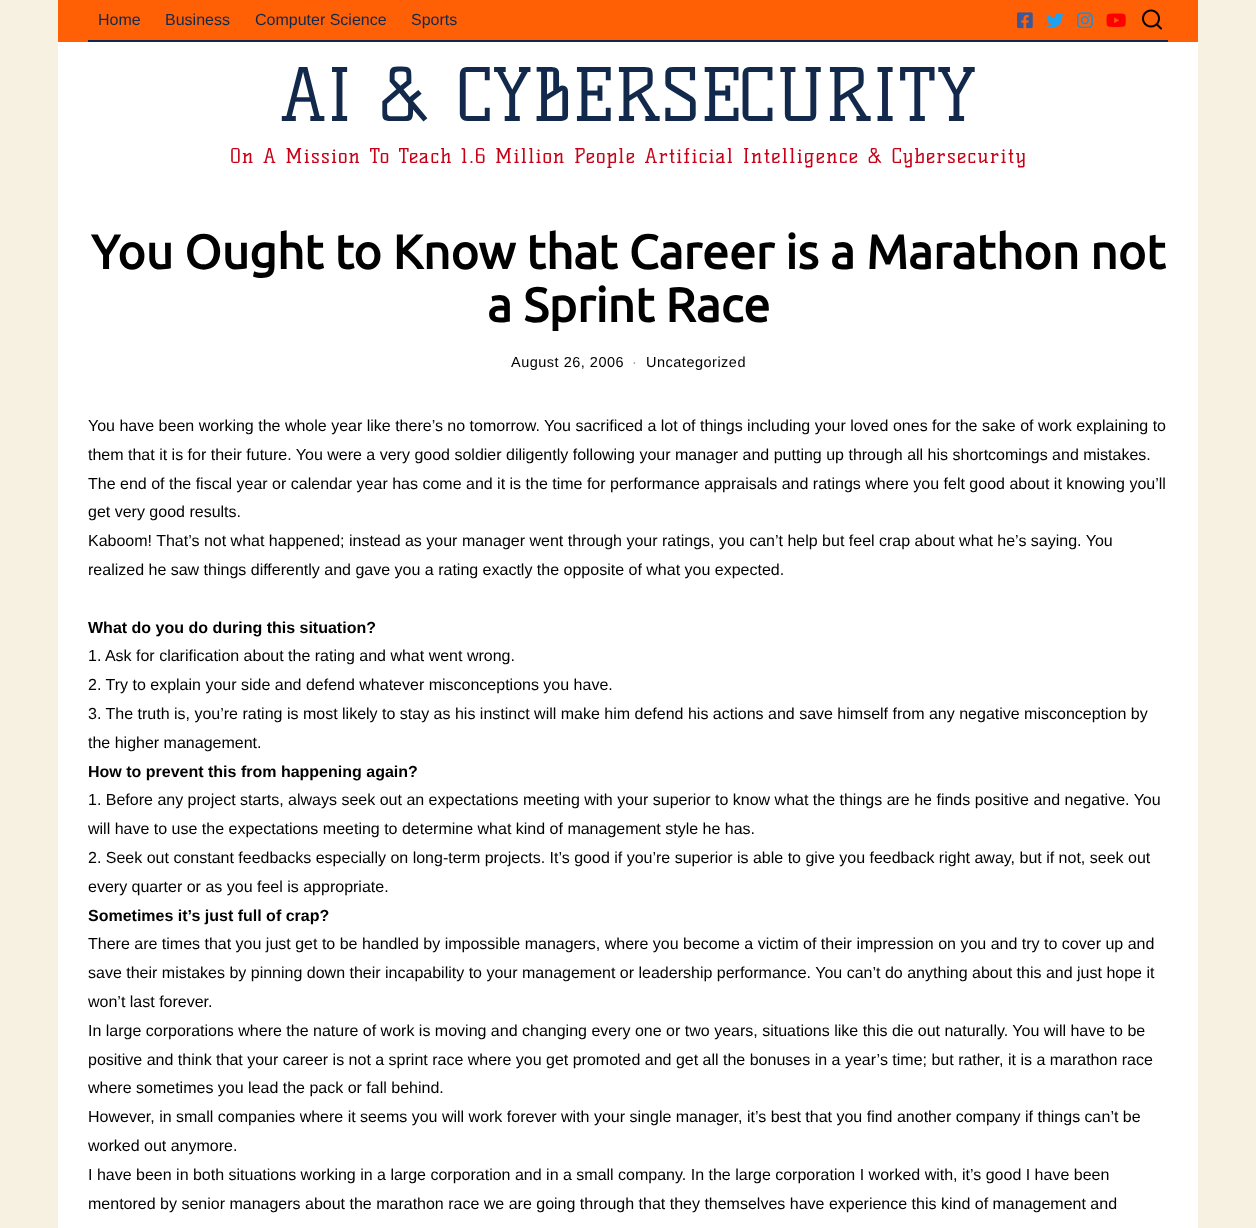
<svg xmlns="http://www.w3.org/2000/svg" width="1256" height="1228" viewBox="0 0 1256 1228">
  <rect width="100%" height="100%" fill="#f7f1e1"/>
  <path d="M58 0h1140v42H58z" fill="#ff5f05"/>
  <path d="M88 40h1080v2H88z" fill="#13294b"/>
  <image x="1017" y="12" width="16" height="17" href="img/1.png"/>
  <image x="1046" y="12" width="18" height="16" href="img/2.png"/>
  <image x="1077" y="12" width="16" height="17" href="img/3.png"/>
  <image x="1106" y="13" width="20" height="14" href="img/4.png"/>
  <image x="1142" y="9" width="20" height="21" href="img/5.png"/>
  <path d="M58 42h1140v1186H58z" fill="#fff"/>
  <g font-family="Liberation Sans" font-size="16" fill="#13294b">
    <text x="98" y="25">Home</text>
    <text x="165" y="25">Business</text>
    <text x="255" y="25">Computer Science</text>
    <text x="411" y="25">Sports</text>
  </g>
  <text x="280" y="121" font-family="Kelly Slab" font-size="72" fill="#13294b">AI &amp; CYBERSECURITY</text>
  <text x="230" y="163" font-family="Kelly Slab" font-size="20" letter-spacing="1.25" fill="#c70017">On A Mission To Teach 1.6 Million People Artificial Intelligence &amp; Cybersecurity</text>
  <g font-family="Ubuntu" font-size="48" font-weight="bold" fill="#000">
    <text x="91" y="269">You Ought to Know that Career is a Marathon not</text>
    <text x="487" y="322">a Sprint Race</text>
  </g>
  <text x="511" y="367" font-family="Liberation Sans" font-size="14.5" letter-spacing="0.5" fill="#000">August 26, 2006</text>
  <text x="632" y="367" font-family="Liberation Sans" font-size="14.5" letter-spacing="0.5" fill="#999">·</text>
  <text x="646" y="367" font-family="Liberation Sans" font-size="14.5" letter-spacing="0.5" fill="#000">Uncategorized</text>
  <g font-family="Liberation Sans" font-size="16" fill="#000">
    <text x="88" y="431">You have been working the whole year like there’s no tomorrow. You sacrificed a lot of things including your loved ones for the sake of work explaining to</text>
    <text x="88" y="460">them that it is for their future. You were a very good soldier diligently following your manager and putting up through all his shortcomings and mistakes.</text>
    <text x="88" y="489">The end of the fiscal year or calendar year has come and it is the time for performance appraisals and ratings where you felt good about it knowing you’ll</text>
    <text x="88" y="517">get very good results.</text>
    <text x="88" y="546">Kaboom! That’s not what happened; instead as your manager went through your ratings, you can’t help but feel crap about what he’s saying. You</text>
    <text x="88" y="575">realized he saw things differently and gave you a rating exactly the opposite of what you expected.</text>
  </g>
  <text x="88" y="633" font-family="Liberation Sans" font-size="16" font-weight="bold" fill="#000">What do you do during this situation?</text>
  <g font-family="Liberation Sans" font-size="16" fill="#000">
    <text x="88" y="661">1. Ask for clarification about the rating and what went wrong.</text>
    <text x="88" y="690">2. Try to explain your side and defend whatever misconceptions you have.</text>
    <text x="88" y="719">3. The truth is, you’re rating is most likely to stay as his instinct will make him defend his actions and save himself from any negative misconception by</text>
    <text x="88" y="748">the higher management.</text>
  </g>
  <text x="88" y="777" font-family="Liberation Sans" font-size="16" font-weight="bold" fill="#000">How to prevent this from happening again?</text>
  <g font-family="Liberation Sans" font-size="16" fill="#000">
    <text x="88" y="805">1. Before any project starts, always seek out an expectations meeting with your superior to know what the things are he finds positive and negative. You</text>
    <text x="88" y="834">will have to use the expectations meeting to determine what kind of management style he has.</text>
    <text x="88" y="863">2. Seek out constant feedbacks especially on long-term projects. It’s good if you’re superior is able to give you feedback right away, but if not, seek out</text>
    <text x="88" y="892">every quarter or as you feel is appropriate.</text>
  </g>
  <text x="88" y="921" font-family="Liberation Sans" font-size="16" font-weight="bold" fill="#000">Sometimes it’s just full of crap?</text>
  <g font-family="Liberation Sans" font-size="16" fill="#000">
    <text x="88" y="949">There are times that you just get to be handled by impossible managers, where you become a victim of their impression on you and try to cover up and</text>
    <text x="88" y="978">save their mistakes by pinning down their incapability to your management or leadership performance. You can’t do anything about this and just hope it</text>
    <text x="88" y="1007">won’t last forever.</text>
    <text x="88" y="1036">In large corporations where the nature of work is moving and changing every one or two years, situations like this die out naturally. You will have to be</text>
    <text x="88" y="1065">positive and think that your career is not a sprint race where you get promoted and get all the bonuses in a year’s time; but rather, it is a marathon race</text>
    <text x="88" y="1093">where sometimes you lead the pack or fall behind.</text>
    <text x="88" y="1122">However, in small companies where it seems you will work forever with your single manager, it’s best that you find another company if things can’t be</text>
    <text x="88" y="1151">worked out anymore.</text>
    <text x="88" y="1180">I have been in both situations working in a large corporation and in a small company. In the large corporation I worked with, it’s good I have been</text>
    <text x="88" y="1209">mentored by senior managers about the marathon race we are going through that they themselves have experience this kind of management and</text>
  </g>
</svg>
